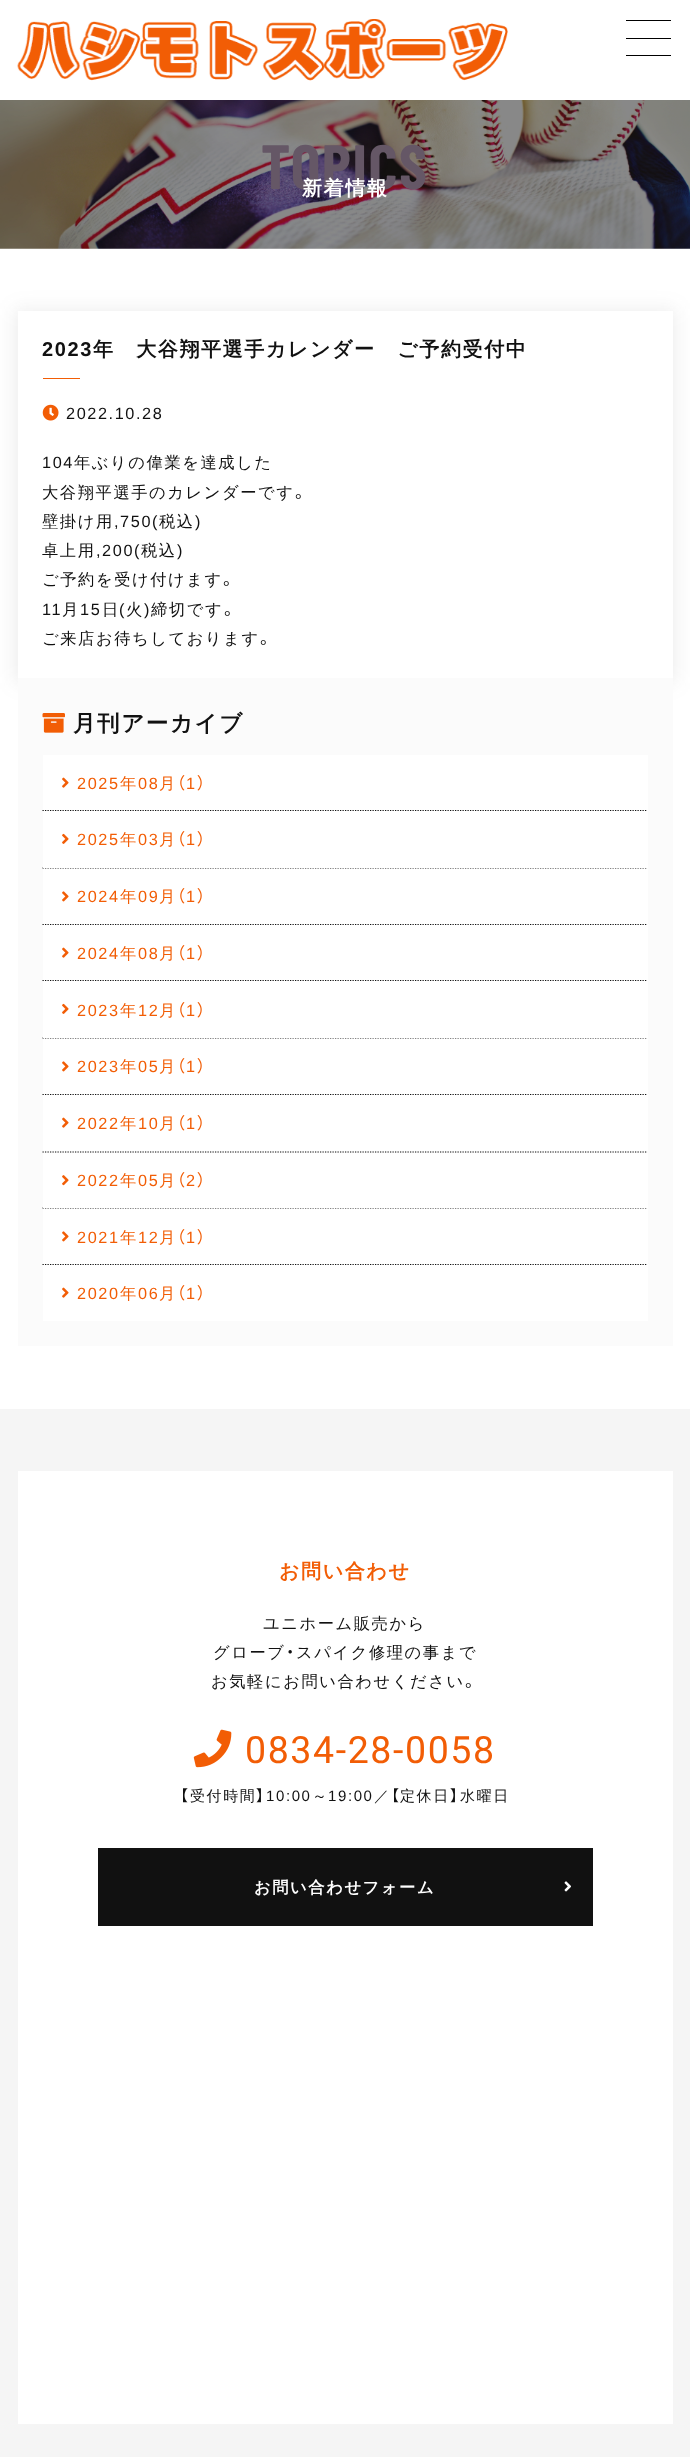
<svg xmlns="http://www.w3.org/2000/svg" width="690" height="2457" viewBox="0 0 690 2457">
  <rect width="100%" height="100%" fill="#fff"/>
  <image x="17" y="19" width="491" height="62" href="img/1.png"/>
  <path d="M626 20h45v1H626z" fill="#000"/>
  <path d="M626 38h45v1H626z" fill="#000"/>
  <path d="M626 55h45v1H626z" fill="#000"/>
  <image x="0" y="100" width="690" height="149" href="img/2.png"/>
  <path d="M14 309h662v374H14z" fill="#5555551a" filter="blur(9.5px)"/>
  <path d="M18 311h655v367H18z" fill="#fff"/>
  <path d="M43 378h37v1H43z" fill="#f25d05"/>
  <image x="42" y="404" width="17" height="17" href="img/3.png"/>
  <path d="M18 678h655v668H18z" fill="#fbfbfb"/>
  <image x="42" y="713" width="23" height="20" href="img/4.png"/>
  <path d="M42.5 810.5H647.5" fill="none" stroke="#111" stroke-width="1.2" stroke-dasharray="1.25 1.25"/>
  <path d="M43 755h605v55H43z" fill="#fff"/>
  <image x="62" y="777" width="7" height="11" href="img/5.png"/>
  <path d="M42.5 868H647.5" fill="none" stroke="#111" stroke-width="1.2" stroke-dasharray="1.25 1.25"/>
  <path d="M43 811h605v57H43z" fill="#fff"/>
  <image x="62" y="833" width="7" height="11" href="img/6.png"/>
  <path d="M42.5 924.5H647.5" fill="none" stroke="#111" stroke-width="1.2" stroke-dasharray="1.25 1.25"/>
  <path d="M43 869h605v55H43z" fill="#fff"/>
  <image x="62" y="891" width="7" height="11" href="img/7.png"/>
  <path d="M42.5 980.5H647.5" fill="none" stroke="#111" stroke-width="1.2" stroke-dasharray="1.25 1.25"/>
  <path d="M43 925h605v55H43z" fill="#fff"/>
  <image x="62" y="947" width="7" height="11" href="img/5.png"/>
  <path d="M42.5 1038H647.5" fill="none" stroke="#111" stroke-width="1.2" stroke-dasharray="1.25 1.25"/>
  <path d="M43 981h605v57H43z" fill="#fff"/>
  <image x="62" y="1003" width="7" height="11" href="img/6.png"/>
  <path d="M42.5 1094.5H647.5" fill="none" stroke="#111" stroke-width="1.2" stroke-dasharray="1.25 1.25"/>
  <path d="M43 1039h605v55H43z" fill="#fff"/>
  <image x="62" y="1061" width="7" height="11" href="img/7.png"/>
  <path d="M42.5 1152H647.5" fill="none" stroke="#111" stroke-width="1.2" stroke-dasharray="1.25 1.25"/>
  <path d="M43 1095h605v56H43z" fill="#fff"/>
  <image x="62" y="1117" width="7" height="11" href="img/5.png"/>
  <path d="M42.5 1208H647.5" fill="none" stroke="#111" stroke-width="1.2" stroke-dasharray="1.25 1.25"/>
  <path d="M43 1153h605v55H43z" fill="#fff"/>
  <image x="62" y="1175" width="7" height="11" href="img/8.png"/>
  <path d="M42.5 1264.5H647.5" fill="none" stroke="#111" stroke-width="1.2" stroke-dasharray="1.25 1.25"/>
  <path d="M43 1209h605v55H43z" fill="#fff"/>
  <image x="62" y="1231" width="7" height="11" href="img/7.png"/>
  <path d="M43 1265h605v56H43z" fill="#fff"/>
  <image x="62" y="1287" width="7" height="11" href="img/5.png"/>
  <path d="M0 1409h690v1048H0z" fill="#f5f5f5"/>
  <path d="M18 1471h655v953H18z" fill="#fff"/>
  <image x="193" y="1729" width="39" height="39" href="img/9.png"/>
  <path d="M98 1848h495v78H98z" fill="#111"/>
  <image x="564" y="1881" width="7" height="11" href="img/10.png"/>
  <text x="261" y="189" font-family="Barlow Condensed" font-size="62.5" font-weight="bold" letter-spacing="1.6" fill="#655766">TOPICS</text>
  <text x="302" y="195" font-family="WenQuanYi Zen Hei" font-size="20" font-weight="bold" letter-spacing="1.6" fill="#fff">新着情報</text>
  <text x="42" y="356" font-family="Liberation Sans" font-size="20" font-weight="bold" letter-spacing="1.6" fill="#111">2023</text>
  <text x="93" y="356" font-family="WenQuanYi Zen Hei" font-size="20" font-weight="bold" letter-spacing="1.6" fill="#111">年　大谷翔平選手カレンダー　ご予約受付中</text>
  <g font-family="Liberation Sans" font-size="16.25" letter-spacing="1.6" fill="#111">
    <text x="66" y="419">2022.10.28</text>
    <text x="42" y="468">104</text>
  </g>
  <g font-family="WenQuanYi Zen Hei" font-size="16.25" font-weight="500" letter-spacing="1.6" fill="#111">
    <text x="74" y="468">年ぶりの偉業を達成した</text>
    <text x="42" y="498">大谷翔平選手のカレンダーです</text>
  </g>
  <text x="295" y="498" font-family="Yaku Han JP" font-size="16.25" letter-spacing="1.6" fill="#111">。</text>
  <text x="42" y="527" font-family="WenQuanYi Zen Hei" font-size="16.25" font-weight="500" letter-spacing="1.6" fill="#111">壁掛け用</text>
  <text x="114" y="527" font-family="Liberation Sans" font-size="16.25" letter-spacing="1.6" fill="#111">,750(</text>
  <text x="159" y="527" font-family="WenQuanYi Zen Hei" font-size="16.25" font-weight="500" letter-spacing="1.6" fill="#111">税込</text>
  <text x="195" y="527" font-family="Liberation Sans" font-size="16.25" letter-spacing="1.6" fill="#111">)</text>
  <text x="42" y="556" font-family="WenQuanYi Zen Hei" font-size="16.25" font-weight="500" letter-spacing="1.6" fill="#111">卓上用</text>
  <text x="96" y="556" font-family="Liberation Sans" font-size="16.25" letter-spacing="1.6" fill="#111">,200(</text>
  <text x="141" y="556" font-family="WenQuanYi Zen Hei" font-size="16.25" font-weight="500" letter-spacing="1.6" fill="#111">税込</text>
  <text x="177" y="556" font-family="Liberation Sans" font-size="16.25" letter-spacing="1.6" fill="#111">)</text>
  <text x="42" y="585" font-family="WenQuanYi Zen Hei" font-size="16.25" font-weight="500" letter-spacing="1.6" fill="#111">ご予約を受け付けます</text>
  <text x="223" y="585" font-family="Yaku Han JP" font-size="16.25" letter-spacing="1.6" fill="#111">。</text>
  <text x="42" y="615" font-family="Liberation Sans" font-size="16.25" letter-spacing="1.6" fill="#111">11</text>
  <text x="62" y="615" font-family="WenQuanYi Zen Hei" font-size="16.25" font-weight="500" letter-spacing="1.6" fill="#111">月</text>
  <text x="80" y="615" font-family="Liberation Sans" font-size="16.25" letter-spacing="1.6" fill="#111">15</text>
  <text x="102" y="615" font-family="WenQuanYi Zen Hei" font-size="16.25" font-weight="500" letter-spacing="1.6" fill="#111">日</text>
  <text x="119" y="615" font-family="Liberation Sans" font-size="16.25" letter-spacing="1.6" fill="#111">(</text>
  <text x="126" y="615" font-family="WenQuanYi Zen Hei" font-size="16.25" font-weight="500" letter-spacing="1.6" fill="#111">火</text>
  <text x="144" y="615" font-family="Liberation Sans" font-size="16.25" letter-spacing="1.6" fill="#111">)</text>
  <text x="151" y="615" font-family="WenQuanYi Zen Hei" font-size="16.25" font-weight="500" letter-spacing="1.6" fill="#111">締切です</text>
  <text x="224" y="615" font-family="Yaku Han JP" font-size="16.25" letter-spacing="1.6" fill="#111">。</text>
  <text x="42" y="644" font-family="WenQuanYi Zen Hei" font-size="16.25" font-weight="500" letter-spacing="1.6" fill="#111">ご来店お待ちしております</text>
  <text x="260" y="644" font-family="Yaku Han JP" font-size="16.25" letter-spacing="1.6" fill="#111">。</text>
  <text x="73" y="731" font-family="WenQuanYi Zen Hei" font-size="22.5" font-weight="bold" letter-spacing="1.6" fill="#111">月刊アーカイブ</text>
  <text x="77" y="789" font-family="Liberation Sans" font-size="16.25" letter-spacing="1.6" fill="#f25d05">2025</text>
  <text x="120" y="789" font-family="WenQuanYi Zen Hei" font-size="16.25" font-weight="500" letter-spacing="1.6" fill="#f25d05">年</text>
  <text x="138" y="789" font-family="Liberation Sans" font-size="16.25" letter-spacing="1.6" fill="#f25d05">08</text>
  <text x="159" y="789" font-family="WenQuanYi Zen Hei" font-size="16.25" font-weight="500" letter-spacing="1.6" fill="#f25d05">月</text>
  <text x="177" y="789" font-family="Yaku Han JP" font-size="16.25" letter-spacing="1.6" fill="#f25d05">（</text>
  <text x="186" y="789" font-family="Liberation Sans" font-size="16.25" letter-spacing="1.6" fill="#f25d05">1</text>
  <text x="197" y="789" font-family="Yaku Han JP" font-size="16.25" letter-spacing="1.6" fill="#f25d05">）</text>
  <text x="77" y="845" font-family="Liberation Sans" font-size="16.25" letter-spacing="1.6" fill="#f25d05">2025</text>
  <text x="120" y="845" font-family="WenQuanYi Zen Hei" font-size="16.25" font-weight="500" letter-spacing="1.6" fill="#f25d05">年</text>
  <text x="138" y="845" font-family="Liberation Sans" font-size="16.25" letter-spacing="1.6" fill="#f25d05">03</text>
  <text x="159" y="845" font-family="WenQuanYi Zen Hei" font-size="16.25" font-weight="500" letter-spacing="1.6" fill="#f25d05">月</text>
  <text x="177" y="845" font-family="Yaku Han JP" font-size="16.25" letter-spacing="1.6" fill="#f25d05">（</text>
  <text x="186" y="845" font-family="Liberation Sans" font-size="16.25" letter-spacing="1.6" fill="#f25d05">1</text>
  <text x="197" y="845" font-family="Yaku Han JP" font-size="16.25" letter-spacing="1.6" fill="#f25d05">）</text>
  <text x="77" y="902" font-family="Liberation Sans" font-size="16.25" letter-spacing="1.6" fill="#f25d05">2024</text>
  <text x="120" y="902" font-family="WenQuanYi Zen Hei" font-size="16.25" font-weight="500" letter-spacing="1.6" fill="#f25d05">年</text>
  <text x="138" y="902" font-family="Liberation Sans" font-size="16.25" letter-spacing="1.6" fill="#f25d05">09</text>
  <text x="159" y="902" font-family="WenQuanYi Zen Hei" font-size="16.25" font-weight="500" letter-spacing="1.6" fill="#f25d05">月</text>
  <text x="177" y="902" font-family="Yaku Han JP" font-size="16.25" letter-spacing="1.6" fill="#f25d05">（</text>
  <text x="186" y="902" font-family="Liberation Sans" font-size="16.25" letter-spacing="1.6" fill="#f25d05">1</text>
  <text x="197" y="902" font-family="Yaku Han JP" font-size="16.25" letter-spacing="1.6" fill="#f25d05">）</text>
  <text x="77" y="959" font-family="Liberation Sans" font-size="16.25" letter-spacing="1.6" fill="#f25d05">2024</text>
  <text x="120" y="959" font-family="WenQuanYi Zen Hei" font-size="16.25" font-weight="500" letter-spacing="1.6" fill="#f25d05">年</text>
  <text x="138" y="959" font-family="Liberation Sans" font-size="16.25" letter-spacing="1.6" fill="#f25d05">08</text>
  <text x="159" y="959" font-family="WenQuanYi Zen Hei" font-size="16.25" font-weight="500" letter-spacing="1.6" fill="#f25d05">月</text>
  <text x="177" y="959" font-family="Yaku Han JP" font-size="16.25" letter-spacing="1.6" fill="#f25d05">（</text>
  <text x="186" y="959" font-family="Liberation Sans" font-size="16.25" letter-spacing="1.6" fill="#f25d05">1</text>
  <text x="197" y="959" font-family="Yaku Han JP" font-size="16.25" letter-spacing="1.6" fill="#f25d05">）</text>
  <text x="77" y="1016" font-family="Liberation Sans" font-size="16.25" letter-spacing="1.6" fill="#f25d05">2023</text>
  <text x="120" y="1016" font-family="WenQuanYi Zen Hei" font-size="16.25" font-weight="500" letter-spacing="1.6" fill="#f25d05">年</text>
  <text x="138" y="1016" font-family="Liberation Sans" font-size="16.25" letter-spacing="1.6" fill="#f25d05">12</text>
  <text x="159" y="1016" font-family="WenQuanYi Zen Hei" font-size="16.25" font-weight="500" letter-spacing="1.6" fill="#f25d05">月</text>
  <text x="177" y="1016" font-family="Yaku Han JP" font-size="16.25" letter-spacing="1.6" fill="#f25d05">（</text>
  <text x="186" y="1016" font-family="Liberation Sans" font-size="16.25" letter-spacing="1.6" fill="#f25d05">1</text>
  <text x="197" y="1016" font-family="Yaku Han JP" font-size="16.25" letter-spacing="1.6" fill="#f25d05">）</text>
  <text x="77" y="1072" font-family="Liberation Sans" font-size="16.25" letter-spacing="1.6" fill="#f25d05">2023</text>
  <text x="120" y="1072" font-family="WenQuanYi Zen Hei" font-size="16.25" font-weight="500" letter-spacing="1.6" fill="#f25d05">年</text>
  <text x="138" y="1072" font-family="Liberation Sans" font-size="16.25" letter-spacing="1.6" fill="#f25d05">05</text>
  <text x="159" y="1072" font-family="WenQuanYi Zen Hei" font-size="16.25" font-weight="500" letter-spacing="1.6" fill="#f25d05">月</text>
  <text x="177" y="1072" font-family="Yaku Han JP" font-size="16.25" letter-spacing="1.6" fill="#f25d05">（</text>
  <text x="186" y="1072" font-family="Liberation Sans" font-size="16.25" letter-spacing="1.6" fill="#f25d05">1</text>
  <text x="197" y="1072" font-family="Yaku Han JP" font-size="16.25" letter-spacing="1.6" fill="#f25d05">）</text>
  <text x="77" y="1129" font-family="Liberation Sans" font-size="16.25" letter-spacing="1.6" fill="#f25d05">2022</text>
  <text x="120" y="1129" font-family="WenQuanYi Zen Hei" font-size="16.25" font-weight="500" letter-spacing="1.6" fill="#f25d05">年</text>
  <text x="138" y="1129" font-family="Liberation Sans" font-size="16.25" letter-spacing="1.6" fill="#f25d05">10</text>
  <text x="159" y="1129" font-family="WenQuanYi Zen Hei" font-size="16.25" font-weight="500" letter-spacing="1.6" fill="#f25d05">月</text>
  <text x="177" y="1129" font-family="Yaku Han JP" font-size="16.25" letter-spacing="1.6" fill="#f25d05">（</text>
  <text x="186" y="1129" font-family="Liberation Sans" font-size="16.25" letter-spacing="1.6" fill="#f25d05">1</text>
  <text x="197" y="1129" font-family="Yaku Han JP" font-size="16.25" letter-spacing="1.6" fill="#f25d05">）</text>
  <text x="77" y="1186" font-family="Liberation Sans" font-size="16.25" letter-spacing="1.6" fill="#f25d05">2022</text>
  <text x="120" y="1186" font-family="WenQuanYi Zen Hei" font-size="16.25" font-weight="500" letter-spacing="1.6" fill="#f25d05">年</text>
  <text x="138" y="1186" font-family="Liberation Sans" font-size="16.25" letter-spacing="1.6" fill="#f25d05">05</text>
  <text x="159" y="1186" font-family="WenQuanYi Zen Hei" font-size="16.25" font-weight="500" letter-spacing="1.6" fill="#f25d05">月</text>
  <text x="177" y="1186" font-family="Yaku Han JP" font-size="16.25" letter-spacing="1.6" fill="#f25d05">（</text>
  <text x="186" y="1186" font-family="Liberation Sans" font-size="16.25" letter-spacing="1.6" fill="#f25d05">2</text>
  <text x="197" y="1186" font-family="Yaku Han JP" font-size="16.25" letter-spacing="1.6" fill="#f25d05">）</text>
  <text x="77" y="1243" font-family="Liberation Sans" font-size="16.25" letter-spacing="1.6" fill="#f25d05">2021</text>
  <text x="120" y="1243" font-family="WenQuanYi Zen Hei" font-size="16.25" font-weight="500" letter-spacing="1.6" fill="#f25d05">年</text>
  <text x="138" y="1243" font-family="Liberation Sans" font-size="16.25" letter-spacing="1.6" fill="#f25d05">12</text>
  <text x="159" y="1243" font-family="WenQuanYi Zen Hei" font-size="16.25" font-weight="500" letter-spacing="1.6" fill="#f25d05">月</text>
  <text x="177" y="1243" font-family="Yaku Han JP" font-size="16.25" letter-spacing="1.6" fill="#f25d05">（</text>
  <text x="186" y="1243" font-family="Liberation Sans" font-size="16.25" letter-spacing="1.6" fill="#f25d05">1</text>
  <text x="197" y="1243" font-family="Yaku Han JP" font-size="16.25" letter-spacing="1.6" fill="#f25d05">）</text>
  <text x="77" y="1299" font-family="Liberation Sans" font-size="16.25" letter-spacing="1.6" fill="#f25d05">2020</text>
  <text x="120" y="1299" font-family="WenQuanYi Zen Hei" font-size="16.25" font-weight="500" letter-spacing="1.6" fill="#f25d05">年</text>
  <text x="138" y="1299" font-family="Liberation Sans" font-size="16.25" letter-spacing="1.6" fill="#f25d05">06</text>
  <text x="159" y="1299" font-family="WenQuanYi Zen Hei" font-size="16.25" font-weight="500" letter-spacing="1.6" fill="#f25d05">月</text>
  <text x="177" y="1299" font-family="Yaku Han JP" font-size="16.25" letter-spacing="1.6" fill="#f25d05">（</text>
  <text x="186" y="1299" font-family="Liberation Sans" font-size="16.25" letter-spacing="1.6" fill="#f25d05">1</text>
  <text x="197" y="1299" font-family="Yaku Han JP" font-size="16.25" letter-spacing="1.6" fill="#f25d05">）</text>
  <text x="279" y="1578" font-family="WenQuanYi Zen Hei" font-size="20" font-weight="bold" letter-spacing="1.6" fill="#f25d05">お問い合わせ</text>
  <g font-family="WenQuanYi Zen Hei" font-size="16.25" font-weight="500" letter-spacing="1.6" fill="#111">
    <text x="263" y="1629">ユニホーム販売から</text>
    <text x="213" y="1658">グローブ</text>
  </g>
  <text x="286" y="1658" font-family="Yaku Han JP" font-size="16.25" letter-spacing="1.6" fill="#111">・</text>
  <g font-family="WenQuanYi Zen Hei" font-size="16.25" font-weight="500" letter-spacing="1.6" fill="#111">
    <text x="296" y="1658">スパイク修理の事まで</text>
    <text x="211" y="1687">お気軽にお問い合わせください</text>
  </g>
  <text x="465" y="1687" font-family="Yaku Han JP" font-size="16.25" letter-spacing="1.6" fill="#111">。</text>
  <text x="245" y="1763" font-family="Roboto" font-size="37.5" letter-spacing="1.6" fill="#f25d05">0834-28-0058</text>
  <text x="180" y="1801" font-family="Yaku Han JP" font-size="15" letter-spacing="1.6" fill="#111">【</text>
  <text x="190" y="1801" font-family="WenQuanYi Zen Hei" font-size="15" font-weight="500" letter-spacing="1.6" fill="#111">受付時間</text>
  <text x="256" y="1801" font-family="Yaku Han JP" font-size="15" letter-spacing="1.6" fill="#111">】</text>
  <text x="266" y="1801" font-family="Liberation Sans" font-size="15" letter-spacing="1.6" fill="#111">10:00</text>
  <text x="312" y="1801" font-family="WenQuanYi Zen Hei" font-size="15" font-weight="500" letter-spacing="1.6" fill="#111">～</text>
  <text x="328" y="1801" font-family="Liberation Sans" font-size="15" letter-spacing="1.6" fill="#111">19:00</text>
  <text x="374" y="1801" font-family="WenQuanYi Zen Hei" font-size="15" font-weight="500" letter-spacing="1.6" fill="#111">／</text>
  <text x="391" y="1801" font-family="Yaku Han JP" font-size="15" letter-spacing="1.6" fill="#111">【</text>
  <text x="400" y="1801" font-family="WenQuanYi Zen Hei" font-size="15" font-weight="500" letter-spacing="1.6" fill="#111">定休日</text>
  <text x="450" y="1801" font-family="Yaku Han JP" font-size="15" letter-spacing="1.6" fill="#111">】</text>
  <text x="460" y="1801" font-family="WenQuanYi Zen Hei" font-size="15" font-weight="500" letter-spacing="1.6" fill="#111">水曜日</text>
  <text x="254" y="1893" font-family="WenQuanYi Zen Hei" font-size="16.25" font-weight="bold" letter-spacing="1.6" fill="#fff">お問い合わせフォーム</text>
</svg>
